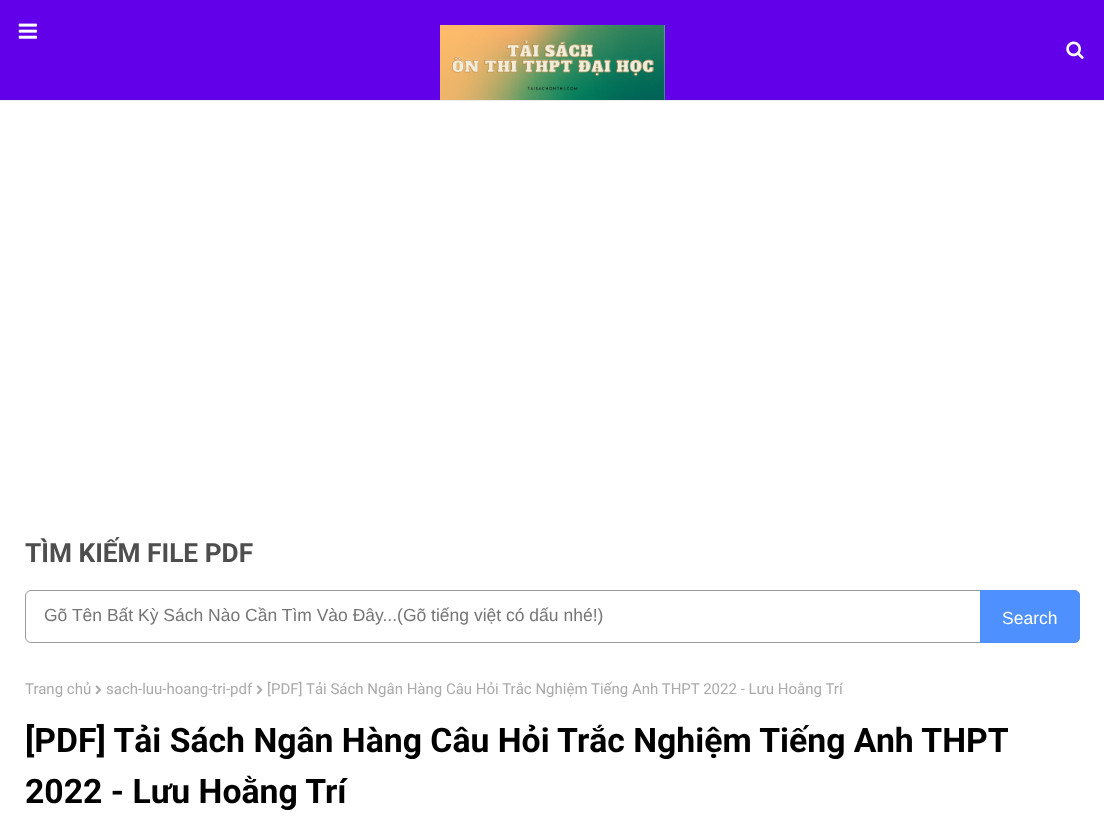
<svg xmlns="http://www.w3.org/2000/svg" width="1104" height="818" viewBox="0 0 1104 818">
  <rect width="100%" height="100%" fill="#fff"/>
  <path d="M0 0h1104v100H0z" fill="#6200ea"/>
  <path d="M0 100h1104v1H0z" fill="#ededed"/>
  <image x="18" y="23" width="19" height="16" href="img/1.png"/>
  <image x="1066" y="41" width="18" height="18" href="img/2.png"/>
  <image x="440" y="25" width="225" height="75" href="img/3.png"/>
  <rect x="25.5" y="590.5" width="1054" height="52" rx="5.5" fill="none" stroke="#999"/>
  <path d="M980 590H1074C1077.5 590 1080 592.5 1080 596V637C1080 640.5 1077.5 643 1074 643H980Z" fill="#4d90fe"/>
  <image x="95" y="685" width="7" height="10" href="img/4.png"/>
  <image x="256" y="685" width="7" height="10" href="img/5.png"/>
  <text x="25" y="562" font-family="Roboto" font-size="26.25" font-weight="bold" fill="#4e4e4e">TÌM KIẾM FILE PDF</text>
  <text x="44" y="621" font-family="Liberation Sans" font-size="17.5" fill="#757575">Gõ Tên Bất Kỳ Sách Nào Cần Tìm Vào Đây...(Gõ tiếng việt có dấu nhé!)</text>
  <text x="1002" y="624" font-family="Liberation Sans" font-size="17.5" fill="#fff">Search</text>
  <g font-family="Roboto" font-size="15" fill="#aaa">
    <text x="25" y="694">Trang chủ</text>
    <text x="106" y="694">sach-luu-hoang-tri-pdf</text>
    <text x="267" y="694">[PDF] Tải Sách Ngân Hàng Câu Hỏi Trắc Nghiệm Tiếng Anh THPT 2022 - Lưu Hoằng Trí</text>
  </g>
  <g font-family="Roboto" font-size="33.75" font-weight="bold" fill="#000">
    <text x="25" y="752">[PDF] Tải Sách Ngân Hàng Câu Hỏi Trắc Nghiệm Tiếng Anh THPT</text>
    <text x="25" y="803">2022 - Lưu Hoằng Trí</text>
  </g>
</svg>
